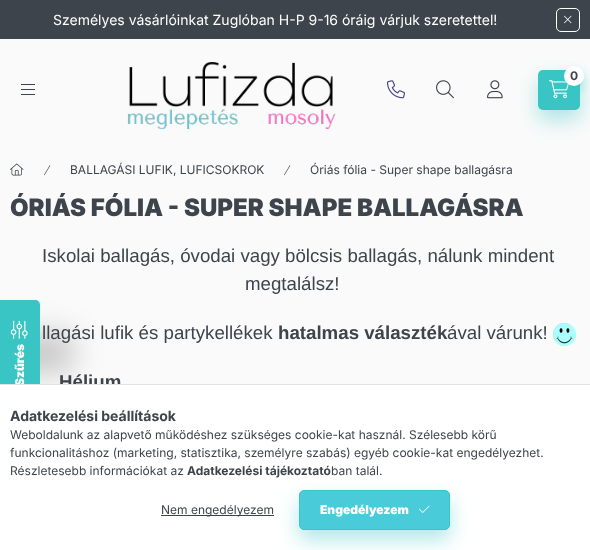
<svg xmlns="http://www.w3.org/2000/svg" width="590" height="550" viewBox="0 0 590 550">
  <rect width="100%" height="100%" fill="#fafafa"/>
  <path d="M0 0h590v39H0z" fill="#3d444b"/>
  <rect x="556.5" y="8.5" width="23" height="23" rx="4.5" fill="none" stroke="#fff"/>
  <image x="564" y="15" width="8" height="9" href="img/1.png"/>
  <path d="M21 84h14v1H21z" fill="#3d444b"/>
  <path d="M21 89h14v1H21z" fill="#3d444b"/>
  <path d="M21 94h14v1H21z" fill="#3d444b"/>
  <image x="127" y="62" width="209" height="68" href="img/2.png"/>
  <image x="387" y="80" width="18" height="19" href="img/3.png"/>
  <rect x="538" y="80" width="42" height="40" rx="5" fill="#3ac5c566" filter="blur(10px)"/>
  <rect x="538" y="70" width="42" height="40" rx="5" fill="#3ac5c5"/>
  <image x="549" y="80" width="20" height="19" href="img/4.png"/>
  <rect x="564" y="71" width="20" height="20" rx="10" fill="#3ac5c566" filter="blur(5px)"/>
  <circle cx="574" cy="76" r="10" fill="#fff"/>
  <image x="436" y="80" width="18" height="19" href="img/5.png"/>
  <image x="487" y="80" width="16" height="19" href="img/6.png"/>
  <image x="10" y="163" width="14" height="13" href="img/7.png"/>
  <image x="44" y="165" width="7" height="11" href="img/8.png"/>
  <image x="284" y="165" width="7" height="11" href="img/8.png"/>
  <image x="553" y="323" width="23" height="23" href="img/9.png"/>
  <rect x="-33" y="333" width="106" height="40" rx="5" fill="#00000033" filter="blur(15px)"/>
  <path d="M0 407V300H35C38 300 40 302 40 305V402C40 405 38 407 35 407Z" fill="#3ac5c5"/>
  <image x="10" y="320" width="18" height="19" href="img/10.png"/>
  <text x="53" y="25" font-family="Inter" font-size="14" fill="#fff">Személyes vásárlóinkat Zuglóban H-P 9-16 óráig várjuk szeretettel!</text>
  <text x="570" y="80" font-family="Inter" font-size="12" font-weight="bold" fill="#3d444b">0</text>
  <g font-family="Inter" font-size="12" fill="#3d444b">
    <text x="70" y="174">BALLAGÁSI LUFIK, LUFICSOKROK</text>
    <text x="310" y="174">Óriás fólia - Super shape ballagásra</text>
  </g>
  <text x="10" y="216" font-family="Inter" font-size="24" font-weight="900" fill="#3d444b">ÓRIÁS FÓLIA - SUPER SHAPE BALLAGÁSRA</text>
  <g font-family="Liberation Sans" font-size="18.7" fill="#3d444b">
    <text x="42" y="262">Iskolai ballagás, óvodai vagy bölcsis ballagás, nálunk mindent</text>
    <text x="245" y="290">megtalálsz!</text>
    <text x="42" y="339">llagási lufik és partykellékek</text>
  </g>
  <text x="278" y="339" font-family="Liberation Sans" font-size="18.7" font-weight="bold" fill="#3d444b">hatalmas választék</text>
  <text x="447" y="339" font-family="Liberation Sans" font-size="18.7" fill="#3d444b">ával várunk!</text>
  <text x="59" y="388" font-family="Liberation Sans" font-size="18.7" font-weight="bold" fill="#3d444b">Hélium</text>
  <text x="24" y="386" transform="rotate(-90 24 386)" font-family="Inter" font-size="12" font-weight="900" fill="#fff">Szűrés</text>
  <path d="M0 385h590v165H0z" fill="#fff"/>
  <path d="M0 384h590v1H0z" fill="#e1e1e1"/>
  <text x="10" y="421" font-family="Inter" font-size="14" font-weight="bold" fill="#3d444b">Adatkezelési beállítások</text>
  <g font-family="Inter" font-size="12" fill="#3d444b">
    <text x="10" y="439">Weboldalunk az alapvető működéshez szükséges cookie-kat használ. Szélesebb körű</text>
    <text x="10" y="457">funkcionalitáshoz (marketing, statisztika, személyre szabás) egyéb cookie-kat engedélyezhet.</text>
    <text x="10" y="475">Részletesebb információkat az</text>
  </g>
  <text x="187" y="475" font-family="Inter" font-size="12" font-weight="bold" fill="#3d444b">Adatkezelési tájékoztató</text>
  <text x="331" y="475" font-family="Inter" font-size="12" fill="#3d444b">ban talál.</text>
  <path d="M161 515h113v1H161z" fill="#3d444b"/>
  <text x="161" y="514" font-family="Inter" font-size="12" fill="#3d444b">Nem engedélyezem</text>
  <rect x="299" y="500" width="151" height="40" rx="5" fill="#3ac5c566" filter="blur(10px)"/>
  <rect x="299.5" y="490.5" width="150" height="39" rx="4.5" fill="#4acbda" stroke="#3ac5c5"/>
  <text x="320" y="514" font-family="Inter" font-size="12" font-weight="900" fill="#fff">Engedélyezem</text>
  <image x="419" y="505" width="11" height="8" href="img/11.png"/>
</svg>
